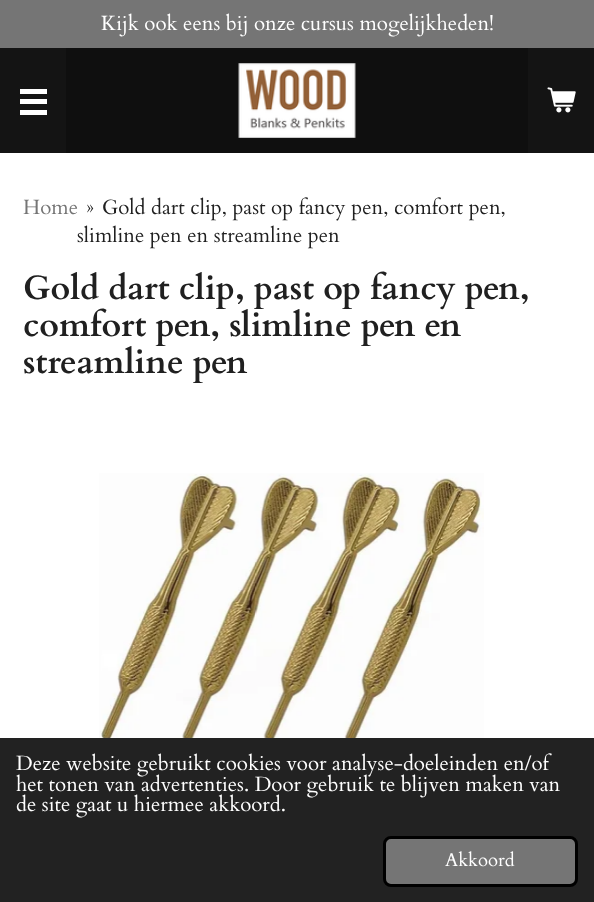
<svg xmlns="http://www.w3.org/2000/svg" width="594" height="902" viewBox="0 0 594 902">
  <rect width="100%" height="100%" fill="#0f0f0f"/>
  <path d="M0 0h594v48H0z" fill="#757575"/>
  <path d="M0 48h66v105H0z" fill="#141414"/>
  <path d="M20 99h27v5H20z" fill="#fff"/>
  <path d="M20 89h27v5H20z" fill="#fff"/>
  <path d="M20 110h27v5H20z" fill="#fff"/>
  <image x="238" y="63" width="118" height="75" href="img/1.png"/>
  <path d="M528 48h66v105H528z" fill="#141414"/>
  <image x="547" y="87" width="29" height="26" href="img/2.png"/>
  <path d="M0 153h594v585H0z" fill="#fff"/>
  <image x="99" y="473" width="385" height="265" href="img/3.png"/>
  <path d="M0 738h594v164H0z" fill="#222"/>
  <rect x="384.5" y="837.5" width="192" height="48" rx="6.5" fill="#757575" stroke="#000" stroke-width="3"/>
  <text x="101" y="30" font-family="Cardo" font-size="20.55" fill="#fff">Kijk ook eens bij onze cursus mogelijkheden!</text>
  <text x="23" y="214" font-family="Cardo" font-size="20.55" fill="#757575">Home</text>
  <g font-family="Cardo" font-size="20.55" fill="#202020">
    <text x="86" y="214">»</text>
    <text x="102" y="214">Gold dart clip, past op fancy pen, comfort pen,</text>
    <text x="77" y="242">slimline pen en streamline pen</text>
  </g>
  <g font-family="Cardo" font-size="33.75" font-weight="bold" fill="#202020">
    <text x="23" y="299">Gold dart clip, past op fancy pen,</text>
    <text x="23" y="336">comfort pen, slimline pen en</text>
    <text x="23" y="373">streamline pen</text>
  </g>
  <g font-family="Cardo" font-size="20.55" fill="#fff">
    <text x="16" y="770">Deze website gebruikt cookies voor analyse-doeleinden en/of</text>
    <text x="16" y="791">het tonen van advertenties. Door gebruik te blijven maken van</text>
    <text x="16" y="811">de site gaat u hiermee akkoord.</text>
  </g>
  <text x="445" y="866" font-family="Cardo" font-size="18.5" fill="#fff">Akkoord</text>
</svg>
